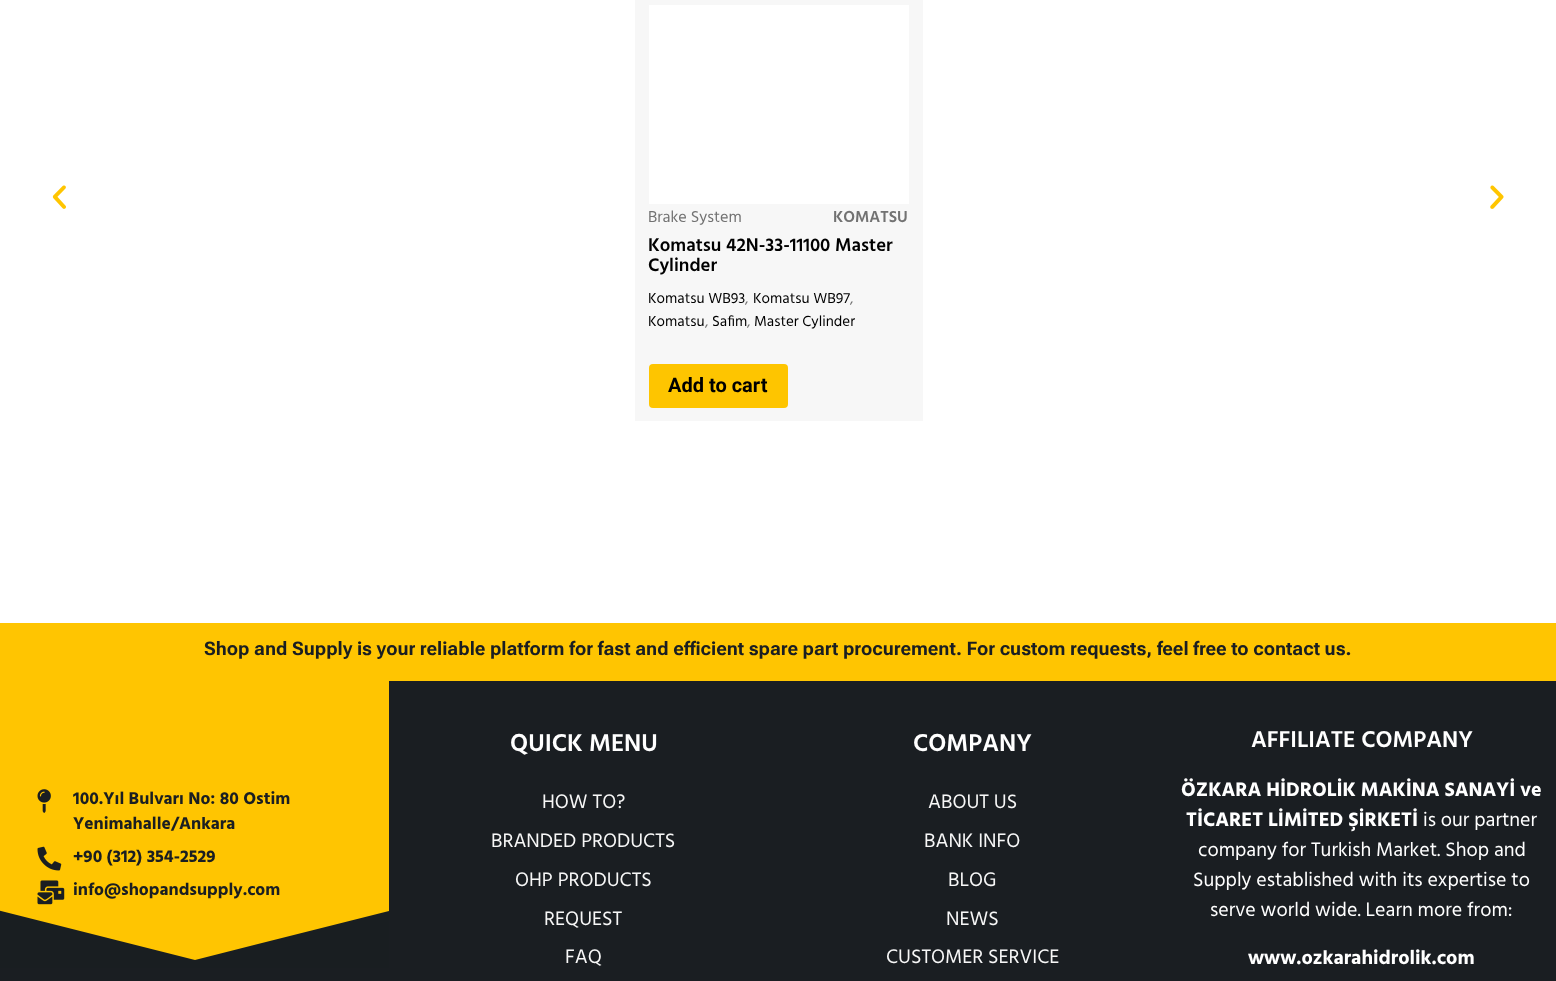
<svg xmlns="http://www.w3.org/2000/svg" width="1556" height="981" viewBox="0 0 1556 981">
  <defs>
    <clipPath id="clip1"><path d="M0 833h389v135H0z"/></clipPath>
  </defs>
  <rect width="100%" height="100%" fill="#fff"/>
  <image x="52" y="185" width="14" height="24" href="img/1.png"/>
  <image x="1490" y="185" width="14" height="24" href="img/2.png"/>
  <path d="M635 0h288v421H635z" fill="#f7f7f7"/>
  <path d="M649 5h260v199H649z" fill="#fff"/>
  <rect x="649" y="364" width="139" height="44" rx="4" fill="#fec500"/>
  <path d="M0 623h1556v58H0z" fill="#ffc501"/>
  <path d="M0 681h1556v300H0z" fill="#1a1e22"/>
  <path d="M0 681h389v279H0z" fill="#ffc501"/>
  <image x="37" y="789" width="14" height="24" href="img/3.png"/>
  <image x="37" y="846" width="25" height="25" href="img/4.png"/>
  <image x="37" y="880" width="28" height="25" href="img/5.png"/>
  <g clip-path="url(#clip1)">
    <path d="M195 960L-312 832V968H702V832Z" fill="#191e21"/>
  </g>
  <text x="648" y="222" font-family="Hind" font-size="16.25" fill="#727272">Brake System</text>
  <text x="833" y="222" font-family="Hind" font-size="16.25" font-weight="600" fill="#727272">KOMATSU</text>
  <g font-family="Hind" font-size="18.75" font-weight="600" fill="#000">
    <text x="648" y="251">Komatsu 42N-33-11100 Master</text>
    <text x="648" y="271">Cylinder</text>
  </g>
  <text x="648" y="303" font-family="Hind" font-size="15" fill="#000">Komatsu WB93</text>
  <text x="745" y="303" font-family="Hind" font-size="15" fill="#727272">,</text>
  <text x="753" y="303" font-family="Hind" font-size="15" fill="#000">Komatsu WB97</text>
  <text x="850" y="303" font-family="Hind" font-size="15" fill="#727272">,</text>
  <text x="648" y="326" font-family="Hind" font-size="15" fill="#000">Komatsu</text>
  <text x="705" y="326" font-family="Hind" font-size="15" fill="#727272">,</text>
  <text x="712" y="326" font-family="Hind" font-size="15" fill="#000">Safim</text>
  <text x="747" y="326" font-family="Hind" font-size="15" fill="#727272">,</text>
  <text x="754" y="326" font-family="Hind" font-size="15" fill="#000">Master Cylinder</text>
  <text x="668" y="392" font-family="Roboto" font-size="20" font-weight="bold" fill="#000">Add to cart</text>
  <text x="204" y="655" font-family="Roboto Flex" font-size="18.75" font-weight="bold" fill="#1a1e22">Shop and Supply is your reliable platform for fast and efficient spare part procurement. For custom requests, feel free to contact us.</text>
  <g font-family="Hind" font-size="17.5" font-weight="bold" fill="#1a1e22">
    <text x="73" y="804">100.Yıl Bulvarı No: 80 Ostim</text>
    <text x="73" y="829">Yenimahalle/Ankara</text>
    <text x="73" y="862">+90 (312) 354-2529</text>
    <text x="73" y="895">info@shopandsupply.com</text>
  </g>
  <text x="510" y="751" font-family="Hind" font-size="25" font-weight="600" fill="#fff">QUICK MENU</text>
  <g font-family="Hind" font-size="20" fill="#f7f7f7">
    <text x="542" y="808">HOW TO?</text>
    <text x="491" y="847">BRANDED PRODUCTS</text>
    <text x="515" y="886">OHP PRODUCTS</text>
    <text x="544" y="925">REQUEST</text>
    <text x="565" y="963">FAQ</text>
  </g>
  <text x="913" y="751" font-family="Hind" font-size="25" font-weight="600" fill="#fff">COMPANY</text>
  <g font-family="Hind" font-size="20" fill="#f7f7f7">
    <text x="928" y="808">ABOUT US</text>
    <text x="924" y="847">BANK INFO</text>
    <text x="948" y="886">BLOG</text>
    <text x="946" y="925">NEWS</text>
    <text x="886" y="963">CUSTOMER SERVICE</text>
  </g>
  <text x="1251" y="747" font-family="Hind" font-size="23.5" font-weight="600" fill="#fff">AFFILIATE COMPANY</text>
  <g font-family="Hind" font-size="20" font-weight="bold" fill="#fff">
    <text x="1181" y="796">ÖZKARA HİDROLİK MAKİNA SANAYİ ve</text>
    <text x="1186" y="826">TİCARET LİMİTED ŞİRKETİ</text>
  </g>
  <g font-family="Hind" font-size="20" fill="#fff">
    <text x="1423" y="826">is our partner</text>
    <text x="1198" y="856">company for Turkish Market. Shop and</text>
    <text x="1193" y="886">Supply established with its expertise to</text>
    <text x="1210" y="916">serve world wide. Learn more from:</text>
  </g>
  <text x="1248" y="964" font-family="Hind" font-size="20" font-weight="bold" fill="#fff">www.ozkarahidrolik.com</text>
</svg>
